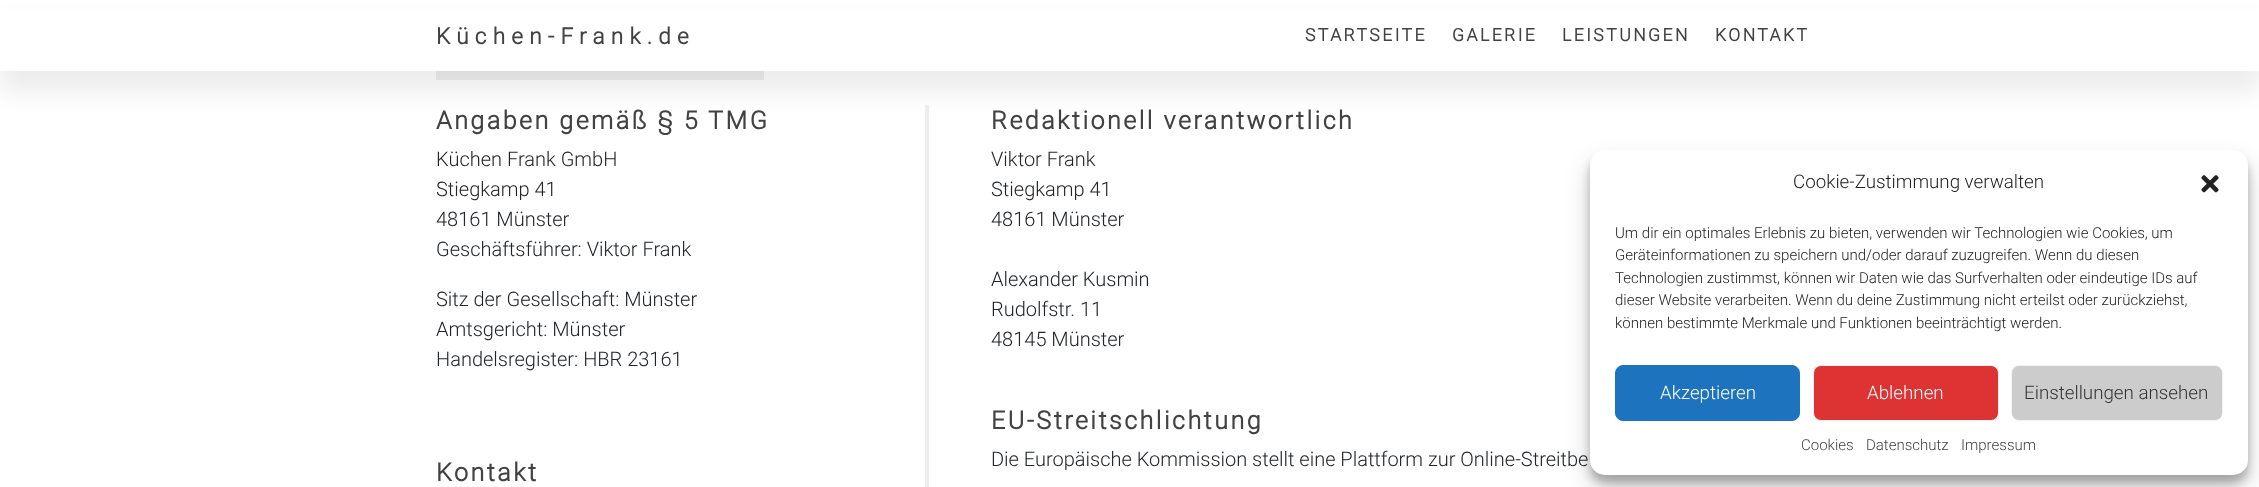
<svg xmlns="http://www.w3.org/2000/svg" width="2259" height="487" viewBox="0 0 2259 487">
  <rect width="100%" height="100%" fill="#fff"/>
  <path d="M436 71h328v9H436z" fill="#eee"/>
  <path d="M925 105h4v382H925z" fill="#eee"/>
  <path d="M0 21h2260v72H0z" fill="#00000012" filter="blur(11px)"/>
  <path d="M0 9h2259v62H0z" fill="#fff"/>
  <rect x="1590" y="158" width="658" height="325" rx="15" fill="#0000003b" filter="blur(4px)"/>
  <rect x="1590" y="163" width="658" height="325" rx="15" fill="#00000030" filter="blur(12.5px)"/>
  <rect x="1590" y="150" width="658" height="325" rx="15" fill="#fff"/>
  <image x="2201" y="175" width="18" height="18" href="img/1.png"/>
  <rect x="1615.5" y="365.5" width="184" height="55" rx="7.5" fill="#1e73be" stroke="#1e73be"/>
  <rect x="1813.5" y="365.5" width="185" height="55" rx="7.5" fill="#d33" stroke="#f2f2f2"/>
  <rect x="2011.5" y="365.5" width="211" height="55" rx="7.5" fill="#ccc" stroke="#f2f2f2"/>
  <text x="436" y="44" font-family="Roboto" font-size="22.5" font-weight="bold" letter-spacing="6.25" fill="#434242">Küchen-Frank.de</text>
  <g font-family="Roboto" font-size="17.5" font-weight="bold" letter-spacing="2.5" fill="#434242">
    <text x="1305" y="41">STARTSEITE</text>
    <text x="1452" y="41">GALERIE</text>
    <text x="1562" y="41">LEISTUNGEN</text>
    <text x="1715" y="41">KONTAKT</text>
  </g>
  <text x="436" y="129" font-family="Roboto" font-size="25" font-weight="bold" letter-spacing="2.5" fill="#434242">Angaben gemäß § 5 TMG</text>
  <g font-family="Roboto" font-size="20" font-weight="300" fill="#212529">
    <text x="436" y="166">Küchen Frank GmbH</text>
    <text x="436" y="196">Stiegkamp 41</text>
    <text x="436" y="226">48161 Münster</text>
    <text x="436" y="256">Geschäftsführer: Viktor Frank</text>
    <text x="436" y="306">Sitz der Gesellschaft: Münster</text>
    <text x="436" y="336">Amtsgericht: Münster</text>
    <text x="436" y="366">Handelsregister: HBR 23161</text>
  </g>
  <g font-family="Roboto" font-size="25" font-weight="bold" letter-spacing="2.5" fill="#434242">
    <text x="436" y="481">Kontakt</text>
    <text x="991" y="129">Redaktionell verantwortlich</text>
  </g>
  <g font-family="Roboto" font-size="20" font-weight="300" fill="#212529">
    <text x="991" y="166">Viktor Frank</text>
    <text x="991" y="196">Stiegkamp 41</text>
    <text x="991" y="226">48161 Münster</text>
    <text x="991" y="286">Alexander Kusmin</text>
    <text x="991" y="316">Rudolfstr. 11</text>
    <text x="991" y="346">48145 Münster</text>
  </g>
  <text x="991" y="429" font-family="Roboto" font-size="25" font-weight="bold" letter-spacing="2.5" fill="#434242">EU-Streitschlichtung</text>
  <text x="991" y="466" font-family="Roboto" font-size="20" font-weight="300" fill="#212529">Die Europäische Kommission stellt eine Plattform zur Online-Streitbe</text>
  <text x="1793" y="188" font-family="Roboto" font-size="18.75" font-weight="300" fill="#222">Cookie-Zustimmung verwalten</text>
  <g font-family="Roboto" font-size="15" font-weight="300" fill="#222">
    <text x="1615" y="238">Um dir ein optimales Erlebnis zu bieten, verwenden wir Technologien wie Cookies, um</text>
    <text x="1615" y="260">Geräteinformationen zu speichern und/oder darauf zuzugreifen. Wenn du diesen</text>
    <text x="1615" y="283">Technologien zustimmst, können wir Daten wie das Surfverhalten oder eindeutige IDs auf</text>
    <text x="1615" y="305">dieser Website verarbeiten. Wenn du deine Zustimmung nicht erteilst oder zurückziehst,</text>
    <text x="1615" y="328">können bestimmte Merkmale und Funktionen beeinträchtigt werden.</text>
  </g>
  <g font-family="Roboto" font-size="18.75" font-weight="300" fill="#fff">
    <text x="1660" y="399">Akzeptieren</text>
    <text x="1867" y="399">Ablehnen</text>
  </g>
  <text x="2024" y="399" font-family="Roboto" font-size="18.75" font-weight="300" fill="#333">Einstellungen ansehen</text>
  <g font-family="Roboto" font-size="15" font-weight="300" fill="#434242">
    <text x="1801" y="450">Cookies</text>
    <text x="1866" y="450">Datenschutz</text>
    <text x="1961" y="450">Impressum</text>
  </g>
</svg>
